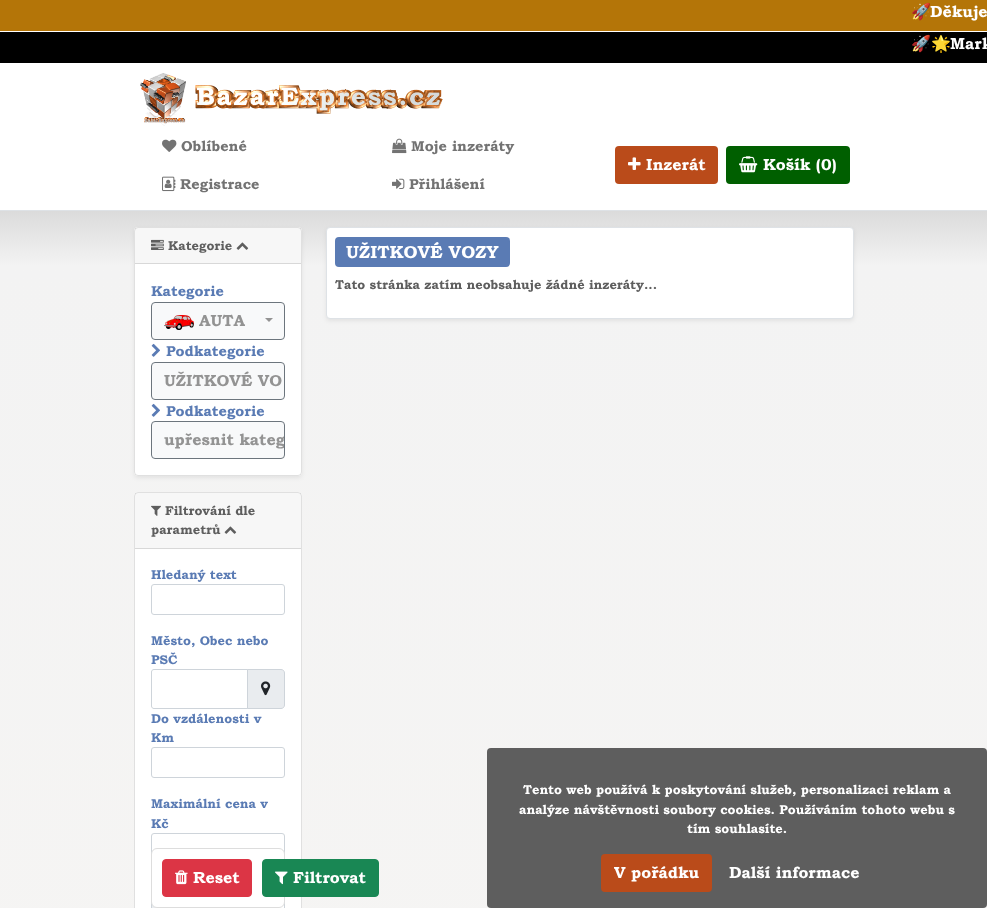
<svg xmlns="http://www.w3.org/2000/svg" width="987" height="908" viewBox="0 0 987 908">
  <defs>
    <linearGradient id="g1" gradientUnits="userSpaceOnUse" x1="494" y1="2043" x2="494" y2="211"><stop offset="0" stop-color="#f9f7f4"/><stop offset="0.97" stop-color="#f3f3f3"/><stop offset="1" stop-color="#dbdbdb"/></linearGradient>
    <clipPath id="clip1"><rect x="152" y="422" width="132" height="36" rx="3"/></clipPath>
  </defs>
  <rect width="100%" height="100%" fill="#fff"/>
  <path d="M0 0h987v31H0z" fill="#b47508"/>
  <path d="M0 32h987v31H0z" fill="#000"/>
  <path d="M0 210h987v1H0z" fill="#dee2e6"/>
  <image x="140" y="73" width="46" height="53" href="img/1.png"/>
  <image x="195" y="85" width="248" height="29" href="img/2.png"/>
  <image x="162" y="139" width="15" height="13" href="img/3.png"/>
  <image x="392" y="138" width="15" height="16" href="img/4.png"/>
  <image x="162" y="176" width="14" height="16" href="img/5.png"/>
  <image x="392" y="178" width="13" height="11" href="img/6.png"/>
  <rect x="615" y="146" width="103" height="38" rx="4" fill="#ba4b1a"/>
  <image x="628" y="157" width="13" height="13" href="img/7.png"/>
  <rect x="726" y="146" width="124" height="38" rx="4" fill="#005f00"/>
  <image x="739" y="156" width="19" height="17" href="img/8.png"/>
  <path d="M0 211h987v697H0z" fill="url(#g1)"/>
  <rect x="134" y="229" width="168" height="249" rx="4" fill="#00000012" filter="blur(2px)"/>
  <rect x="134" y="227" width="168" height="249" rx="4" fill="#fff"/>
  <rect x="134.5" y="227.5" width="167" height="248" rx="3.5" fill="none" stroke="#0000001f"/>
  <path d="M135 228h166v35H135z" fill="#00000008"/>
  <path d="M135 263h166v1H135z" fill="#d8d8d8"/>
  <image x="151" y="239" width="13" height="11" href="img/9.png"/>
  <image x="236" y="242" width="13" height="8" href="img/10.png"/>
  <rect x="151.5" y="302.5" width="133" height="37" rx="3.5" fill="#f8f9fa" stroke="#6c757d"/>
  <image x="164" y="315" width="30" height="15" href="img/11.png"/>
  <path d="M265 318H273L269 322Z" fill="#939393"/>
  <image x="151" y="343" width="9" height="14" href="img/12.png"/>
  <rect x="151.5" y="362.5" width="133" height="37" rx="3.5" fill="#f8f9fa" stroke="#6c757d"/>
  <image x="151" y="403" width="9" height="14" href="img/12.png"/>
  <rect x="151.5" y="421.5" width="133" height="37" rx="3.5" fill="#f8f9fa" stroke="#6c757d"/>
  <rect x="134" y="492" width="168" height="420" rx="4" fill="#fff"/>
  <rect x="134.5" y="492.5" width="167" height="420" rx="3.5" fill="none" stroke="#0000001f"/>
  <path d="M135 493h166v55H135z" fill="#00000008"/>
  <path d="M135 548h166v1H135z" fill="#d8d8d8"/>
  <image x="151" y="505" width="10" height="11" href="img/13.png"/>
  <image x="224" y="526" width="13" height="8" href="img/10.png"/>
  <rect x="151.5" y="584.5" width="133" height="30" rx="2.5" fill="none" stroke="#ced4da"/>
  <path d="M247.5 669.5H281C283 669.5 284.5 671 284.5 673V705C284.5 707 283 708.5 281 708.5H247.5Z" fill="#e9ecef" stroke="#ced4da"/>
  <path d="M154 669.5H247.5V708.5H154C152.5 708.5 151.5 707.5 151.5 706V672C151.5 670.5 152.5 669.5 154 669.5Z" fill="none" stroke="#ced4da"/>
  <image x="261" y="681" width="10" height="15" href="img/14.png"/>
  <rect x="151.5" y="747.5" width="133" height="30" rx="2.5" fill="none" stroke="#ced4da"/>
  <rect x="151.5" y="833.5" width="133" height="30" rx="2.5" fill="none" stroke="#ced4da"/>
  <path d="M151 902h6v6H151z" fill="#e9ecef"/>
  <path d="M151.5 899.5h48v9H151.5z" fill="none" stroke="#ced4da"/>
  <path d="M265.5 899.5h19v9H265.5z" fill="none" stroke="#ced4da"/>
  <rect x="151.5" y="848.5" width="133" height="59" rx="5.5" fill="#fff" stroke="#ddd"/>
  <rect x="162.5" y="859.5" width="89" height="37" rx="3.5" fill="#dc3545" stroke="#dc3545"/>
  <image x="175" y="870" width="13" height="15" href="img/15.png"/>
  <rect x="262.5" y="859.5" width="116" height="37" rx="3.5" fill="#198754" stroke="#198754"/>
  <image x="275" y="871" width="13" height="14" href="img/16.png"/>
  <rect x="326" y="229" width="528" height="92" rx="4" fill="#00000012" filter="blur(2px)"/>
  <rect x="326.5" y="227.5" width="527" height="91" rx="3.5" fill="#fff" stroke="#dee2e6"/>
  <rect x="335" y="237" width="175" height="30" rx="4" fill="#5a7bb4"/>
  <rect x="487" y="748" width="500" height="160" rx="4" fill="#5e5e5e"/>
  <rect x="601" y="854" width="111" height="38" rx="4" fill="#ba4b1a"/>
  <text x="911" y="17" font-family="Noto Color Emoji" font-size="16" fill="#fff">🚀</text>
  <text x="930" y="17" font-family="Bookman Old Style" font-size="16" font-weight="bold" fill="#fff">Děkuje</text>
  <text x="911" y="49" font-family="Noto Color Emoji" font-size="16" fill="#fff">🚀🌟</text>
  <text x="950" y="49" font-family="Bookman Old Style" font-size="16" font-weight="bold" fill="#fff">Mark</text>
  <g font-family="Bookman Old Style" font-size="14.5" font-weight="bold" fill="#737373">
    <text x="181" y="151">Oblíbené</text>
    <text x="411" y="151">Moje inzeráty</text>
    <text x="180" y="189">Registrace</text>
    <text x="409" y="189">Přihlášení</text>
  </g>
  <g font-family="Bookman Old Style" font-size="16" font-weight="bold" fill="#fff">
    <text x="646" y="170">Inzerát</text>
    <text x="763" y="170">Košík (0)</text>
  </g>
  <text x="168" y="250" font-family="Bookman Old Style" font-size="12.8" font-weight="bold" fill="#5e5e5e">Kategorie</text>
  <text x="151" y="296" font-family="Bookman Old Style" font-size="14.5" font-weight="bold" fill="#5a7bb4">Kategorie</text>
  <text x="199" y="326" font-family="Bookman Old Style" font-size="16" font-weight="bold" fill="#939393">AUTA</text>
  <text x="166" y="356" font-family="Bookman Old Style" font-size="14.5" font-weight="bold" fill="#5a7bb4">Podkategorie</text>
  <text x="164" y="386" font-family="Bookman Old Style" font-size="16" font-weight="bold" fill="#939393">UŽITKOVÉ VO</text>
  <text x="166" y="416" font-family="Bookman Old Style" font-size="14.5" font-weight="bold" fill="#5a7bb4">Podkategorie</text>
  <g clip-path="url(#clip1)">
    <text x="164" y="445" font-family="Bookman Old Style" font-size="16" font-weight="bold" fill="#939393">upřesnit kateg</text>
  </g>
  <g font-family="Bookman Old Style" font-size="12.8" font-weight="bold" fill="#5e5e5e">
    <text x="165" y="515">Filtrování dle</text>
    <text x="151" y="534">parametrů</text>
  </g>
  <g font-family="Bookman Old Style" font-size="12.8" font-weight="bold" fill="#5a7bb4">
    <text x="151" y="579">Hledaný text</text>
    <text x="151" y="645">Město, Obec nebo</text>
    <text x="151" y="664">PSČ</text>
    <text x="151" y="723">Do vzdálenosti v</text>
    <text x="151" y="742">Km</text>
    <text x="151" y="808">Maximální cena v</text>
    <text x="151" y="828">Kč</text>
  </g>
  <g font-family="Bookman Old Style" font-size="16" font-weight="bold" fill="#fff">
    <text x="193" y="883">Reset</text>
    <text x="293" y="883">Filtrovat</text>
  </g>
  <text x="346" y="258" font-family="Bookman Old Style" font-size="17.5" font-weight="bold" fill="#fff">UŽITKOVÉ VOZY</text>
  <text x="335" y="289" font-family="Bookman Old Style" font-size="12.8" font-weight="bold" fill="#5e5e5e">Tato stránka zatím neobsahuje žádné inzeráty...</text>
  <g font-family="Bookman Old Style" font-size="12.8" font-weight="bold" fill="#fff">
    <text x="523" y="794">Tento web používá k poskytování služeb, personalizaci reklam a</text>
    <text x="519" y="814">analýze návštěvnosti soubory cookies. Používáním tohoto webu s</text>
    <text x="687" y="833">tím souhlasíte.</text>
  </g>
  <g font-family="Bookman Old Style" font-size="16" font-weight="bold" fill="#fff">
    <text x="614" y="878">V pořádku</text>
    <text x="729" y="878">Další informace</text>
  </g>
</svg>
